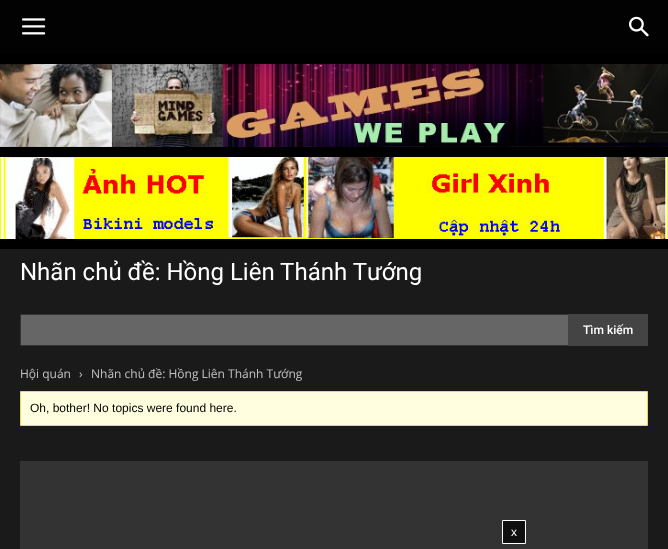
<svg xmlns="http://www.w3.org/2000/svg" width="668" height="549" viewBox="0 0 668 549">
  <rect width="100%" height="100%" fill="#1a1a1a"/>
  <path d="M0 0h668v54H0z" fill="#020202"/>
  <image x="22" y="18" width="24" height="17" href="img/1.png"/>
  <image x="629" y="16" width="20" height="21" href="img/2.png"/>
  <path d="M0 54h668v195H0z" fill="#000"/>
  <image x="0" y="64" width="668" height="83" href="img/3.png"/>
  <image x="0" y="157" width="668" height="82" href="img/4.png"/>
  <path d="M21 315h547v30H21z" fill="#666"/>
  <path d="M20.5 314.5h596v31H20.5z" fill="none" stroke="#333"/>
  <path d="M568 314h80v32H568z" fill="#444"/>
  <path d="M20.5 391.5h627v34H20.5z" fill="#ffffe0" stroke="#e6db55"/>
  <path d="M20 461h628v88H20z" fill="#333"/>
  <path d="M502.5 520.5h23v23H502.5z" fill="#0f0f0f" stroke="#fff"/>
  <text x="20" y="280" font-family="Roboto" font-size="24" fill="#fff">Nhãn chủ đề: Hồng Liên Thánh Tướng</text>
  <text x="583" y="334" font-family="Roboto" font-size="12" font-weight="500" fill="#fff">Tìm kiếm</text>
  <g font-family="Open Sans" font-size="12" fill="#c3c3c3">
    <text x="20" y="378">Hội quán</text>
    <text x="79" y="378">›</text>
    <text x="91" y="378">Nhãn chủ đề: Hồng Liên Thánh Tướng</text>
  </g>
  <text x="30" y="412" font-family="Liberation Sans" font-size="12" fill="#000">Oh, bother! No topics were found here.</text>
  <text x="511" y="536" font-family="Liberation Sans" font-size="12" fill="#fff">x</text>
</svg>
